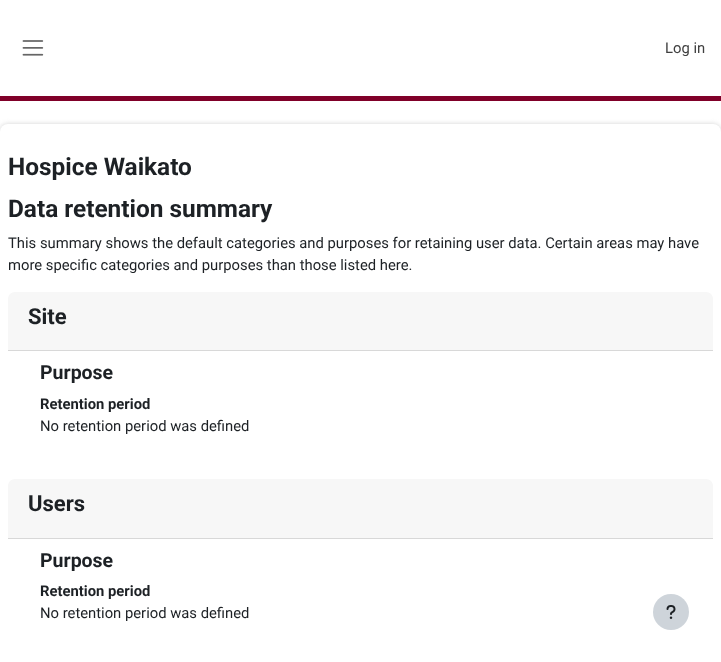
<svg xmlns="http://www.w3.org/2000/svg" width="721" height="662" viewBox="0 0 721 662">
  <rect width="100%" height="100%" fill="#fff"/>
  <path d="M0 96h721v5H0z" fill="#800029"/>
  <image x="22" y="40" width="22" height="16" href="img/1.png"/>
  <rect y="124" width="721" height="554" rx="8" fill="#d3d3d3" filter="blur(2.5px)"/>
  <rect y="124" width="721" height="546" rx="8" fill="#fff"/>
  <path d="M15 292H706C710 292 713 295 713 299V351H8V299C8 295 11 292 15 292Z" fill="#f7f7f7"/>
  <path d="M8 350h705v1H8z" fill="#d8d8d8"/>
  <path d="M15 479H706C710 479 713 482 713 486V539H8V486C8 482 11 479 15 479Z" fill="#f7f7f7"/>
  <path d="M8 538h705v1H8z" fill="#d8d8d8"/>
  <circle cx="671" cy="612" r="18" fill="#ced4da"/>
  <image x="666" y="605" width="10" height="14" href="img/2.png"/>
  <text x="665" y="53" font-family="Roboto" font-size="14.8" fill="#3f3f3f">Log in</text>
  <g font-family="Roboto" font-size="24.4" font-weight="bold" fill="#1d2125">
    <text x="8" y="175">Hospice Waikato</text>
    <text x="8" y="217">Data retention summary</text>
  </g>
  <g font-family="Roboto" font-size="14.8" fill="#1d2125">
    <text x="8" y="248">This summary shows the default categories and purposes for retaining user data. Certain areas may have</text>
    <text x="8" y="270">more specific categories and purposes than those listed here.</text>
  </g>
  <text x="28" y="324" font-family="Roboto" font-size="22" font-weight="bold" fill="#1d2125">Site</text>
  <text x="40" y="379" font-family="Roboto" font-size="19.5" font-weight="bold" fill="#1d2125">Purpose</text>
  <text x="40" y="409" font-family="Roboto" font-size="14.8" font-weight="bold" fill="#1d2125">Retention period</text>
  <text x="40" y="431" font-family="Roboto" font-size="14.8" fill="#1d2125">No retention period was defined</text>
  <text x="28" y="511" font-family="Roboto" font-size="22" font-weight="bold" fill="#1d2125">Users</text>
  <text x="40" y="567" font-family="Roboto" font-size="19.5" font-weight="bold" fill="#1d2125">Purpose</text>
  <text x="40" y="596" font-family="Roboto" font-size="14.8" font-weight="bold" fill="#1d2125">Retention period</text>
  <text x="40" y="618" font-family="Roboto" font-size="14.8" fill="#1d2125">No retention period was defined</text>
</svg>
